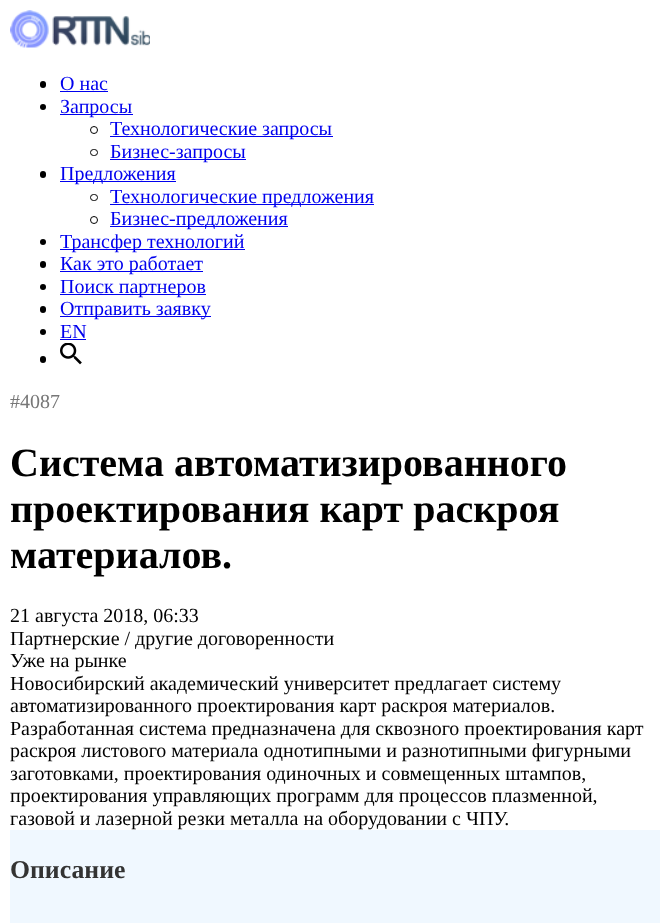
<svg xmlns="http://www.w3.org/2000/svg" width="670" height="923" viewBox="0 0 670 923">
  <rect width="100%" height="100%" fill="#fff"/>
  <image x="10" y="10" width="140" height="38" href="img/1.png"/>
  <rect x="40" y="81" width="6" height="7" rx="3" fill="#000"/>
  <path d="M60 91h48v1H60z" fill="#00e"/>
  <circle cx="43" cy="107" r="3" fill="#000"/>
  <path d="M60 114h73v1H60z" fill="#00e"/>
  <circle cx="94" cy="130" r="3.5" fill="none" stroke="#000"/>
  <path d="M110 136h223v1H110z" fill="#00e"/>
  <rect x="90.5" y="149.5" width="7" height="6" rx="3" fill="none" stroke="#000"/>
  <path d="M110 159h136v1H110z" fill="#00e"/>
  <rect x="40" y="171" width="6" height="7" rx="3" fill="#000"/>
  <path d="M60 181h116v1H60z" fill="#00e"/>
  <rect x="90.5" y="194.5" width="7" height="6" rx="3" fill="none" stroke="#000"/>
  <path d="M110 204h264v1H110z" fill="#00e"/>
  <circle cx="94" cy="220" r="3.5" fill="none" stroke="#000"/>
  <path d="M110 226h178v1H110z" fill="#00e"/>
  <circle cx="43" cy="242" r="3" fill="#000"/>
  <path d="M60 249h185v1H60z" fill="#00e"/>
  <rect x="40" y="261" width="6" height="7" rx="3" fill="#000"/>
  <path d="M60 271h143v1H60z" fill="#00e"/>
  <circle cx="43" cy="287" r="3" fill="#000"/>
  <path d="M60 294h146v1H60z" fill="#00e"/>
  <rect x="40" y="306" width="6" height="7" rx="3" fill="#000"/>
  <path d="M60 316h151v1H60z" fill="#00e"/>
  <circle cx="43" cy="332" r="3" fill="#000"/>
  <path d="M60 339h26v1H60z" fill="#00e"/>
  <rect x="40" y="356" width="6" height="7" rx="3" fill="#000"/>
  <image x="60" y="343" width="22" height="22" href="img/2.png"/>
  <path d="M10 830h650v93H10z" fill="#f0f8ff"/>
  <g font-family="Liberation Serif" font-size="20" fill="#00e">
    <text x="60" y="90">О нас</text>
    <text x="60" y="113">Запросы</text>
    <text x="110" y="135">Технологические запросы</text>
    <text x="110" y="158">Бизнес-запросы</text>
    <text x="60" y="180">Предложения</text>
    <text x="110" y="203">Технологические предложения</text>
    <text x="110" y="225">Бизнес-предложения</text>
    <text x="60" y="248">Трансфер технологий</text>
    <text x="60" y="270">Как это работает</text>
    <text x="60" y="293">Поиск партнеров</text>
    <text x="60" y="315">Отправить заявку</text>
    <text x="60" y="338">EN</text>
  </g>
  <text x="10" y="408" font-family="Liberation Serif" font-size="20" fill="#777">#4087</text>
  <g font-family="Liberation Serif" font-size="40" font-weight="bold" fill="#000">
    <text x="10" y="476">Система автоматизированного</text>
    <text x="10" y="522">проектирования карт раскроя</text>
    <text x="10" y="568">материалов.</text>
  </g>
  <g font-family="Liberation Serif" font-size="20" fill="#000">
    <text x="10" y="622">21 августа 2018, 06:33</text>
    <text x="10" y="645">Партнерские / другие договоренности</text>
    <text x="10" y="667">Уже на рынке</text>
    <text x="10" y="690">Новосибирский академический университет предлагает систему</text>
    <text x="10" y="712">автоматизированного проектирования карт раскроя материалов.</text>
    <text x="10" y="735">Разработанная система предназначена для сквозного проектирования карт</text>
    <text x="10" y="757">раскроя листового материала однотипными и разнотипными фигурными</text>
    <text x="10" y="780">заготовками, проектирования одиночных и совмещенных штампов,</text>
    <text x="10" y="802">проектирования управляющих программ для процессов плазменной,</text>
    <text x="10" y="825">газовой и лазерной резки металла на оборудовании с ЧПУ.</text>
  </g>
  <text x="10" y="878" font-family="Liberation Serif" font-size="25.75" font-weight="bold" fill="#333">Описание</text>
</svg>
